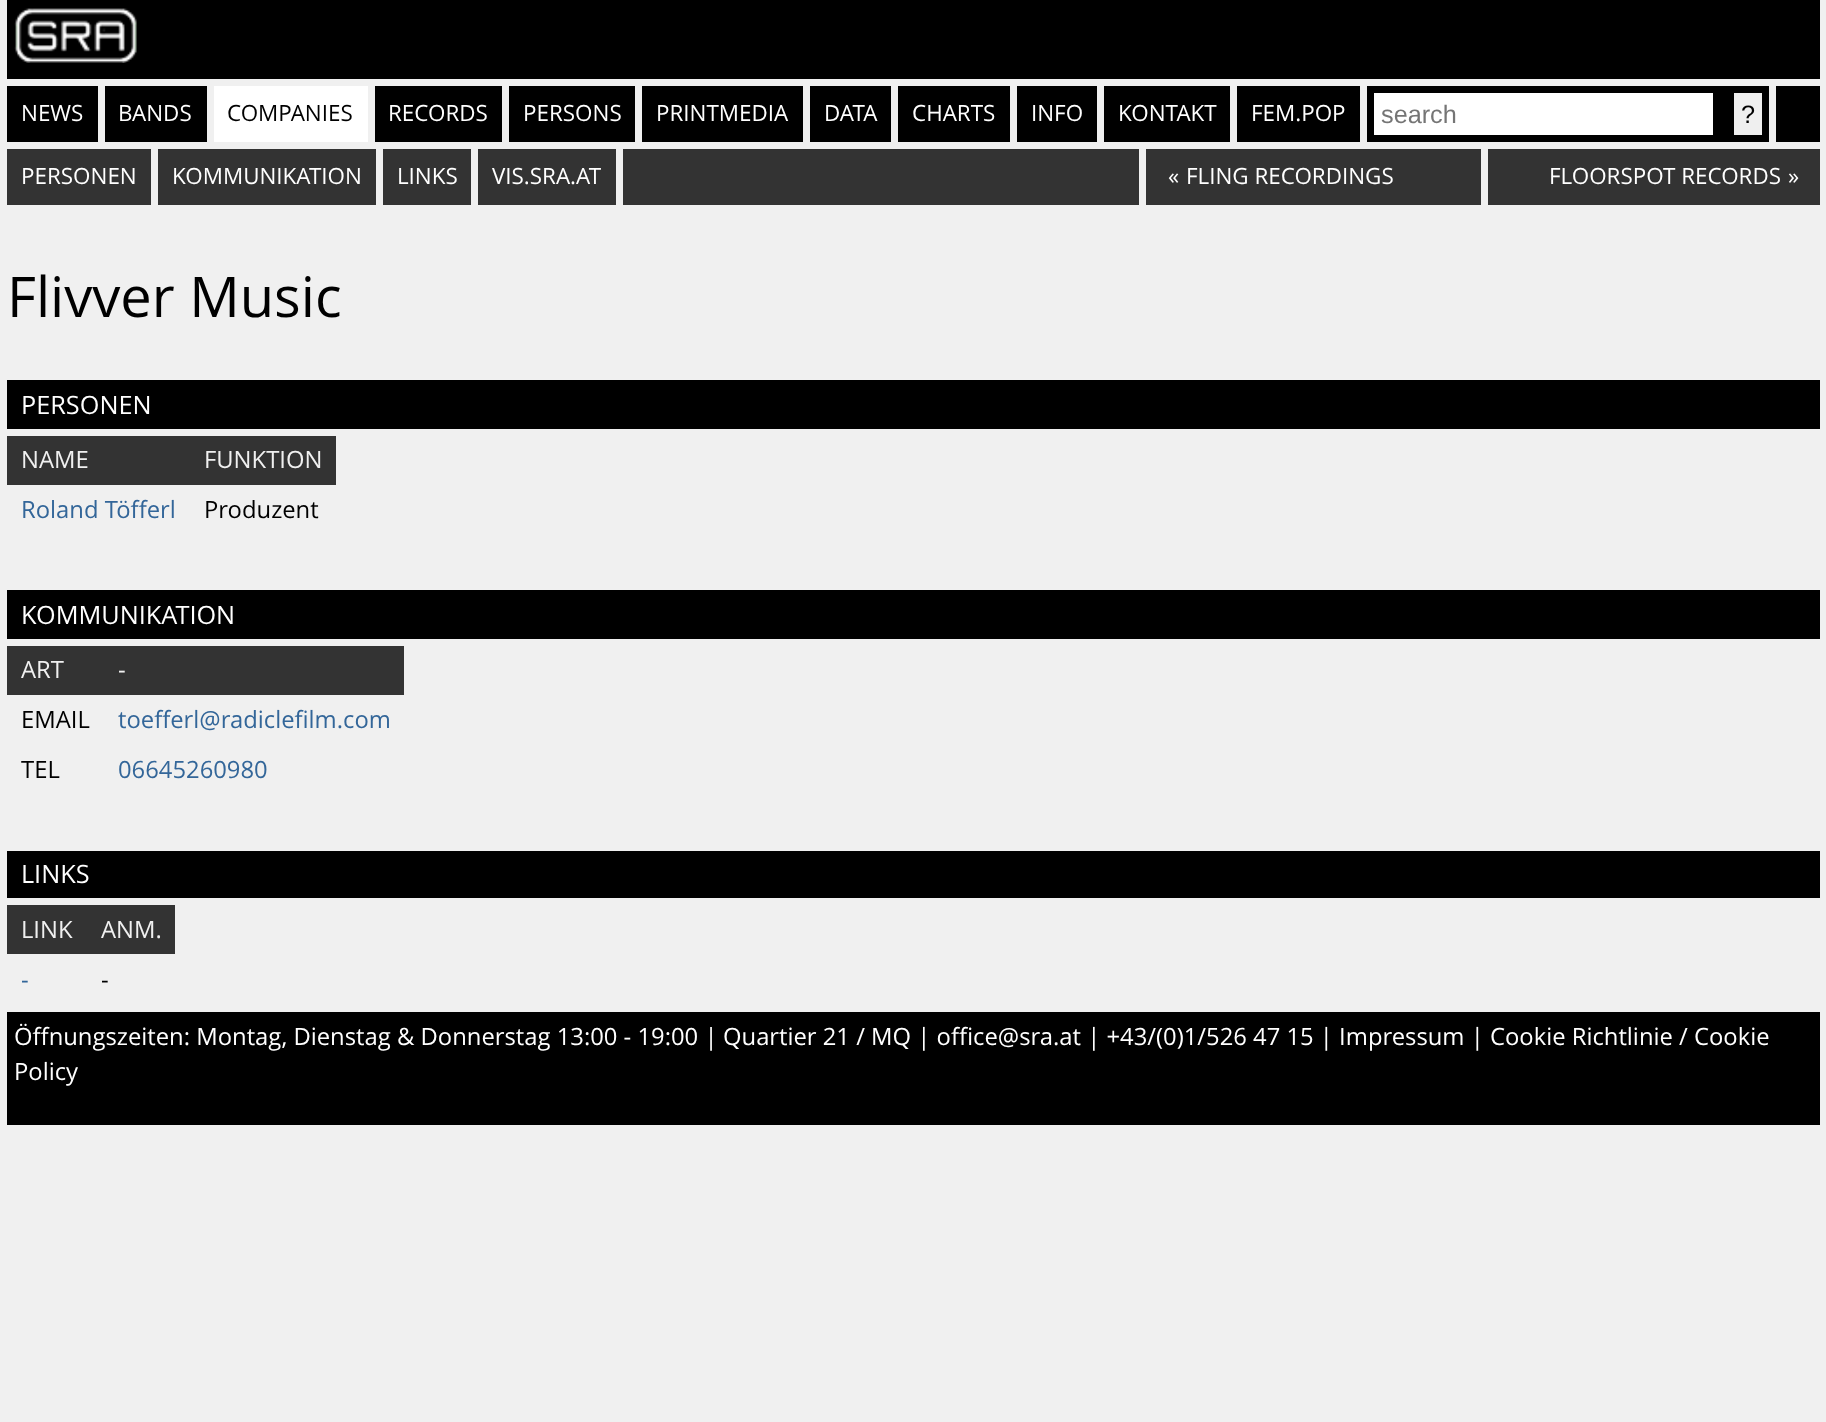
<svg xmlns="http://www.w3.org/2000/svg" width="1826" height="1422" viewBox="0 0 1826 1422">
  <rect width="100%" height="100%" fill="#f0f0f0"/>
  <path d="M7 0h1813v79H7z" fill="#000"/>
  <image x="14" y="8" width="123" height="55" href="img/1.png"/>
  <path d="M7 86h91v56H7z" fill="#000"/>
  <path d="M105 86h102v56H105z" fill="#000"/>
  <path d="M214 86h154v56H214z" fill="#fff"/>
  <path d="M375 86h127v56H375z" fill="#000"/>
  <path d="M509 86h126v56H509z" fill="#000"/>
  <path d="M642 86h161v56H642z" fill="#000"/>
  <path d="M810 86h81v56H810z" fill="#000"/>
  <path d="M898 86h112v56H898z" fill="#000"/>
  <path d="M1017 86h80v56H1017z" fill="#000"/>
  <path d="M1104 86h126v56H1104z" fill="#000"/>
  <path d="M1237 86h123v56H1237z" fill="#000"/>
  <path d="M1367 86h402v56H1367z" fill="#000"/>
  <path d="M1374 93h339v42H1374z" fill="#fff"/>
  <path d="M1734 93h28v42H1734z" fill="#efefef"/>
  <path d="M1776 86h44v56H1776z" fill="#000"/>
  <path d="M7 149h144v56H7z" fill="#333"/>
  <path d="M158 149h218v56H158z" fill="#333"/>
  <path d="M383 149h88v56H383z" fill="#333"/>
  <path d="M478 149h138v56H478z" fill="#333"/>
  <path d="M623 149h516v56H623z" fill="#333"/>
  <path d="M1146 149h335v56H1146z" fill="#333"/>
  <path d="M1488 149h332v56H1488z" fill="#333"/>
  <path d="M7 380h1813v49H7z" fill="#000"/>
  <path d="M7 436h329v49H7z" fill="#333"/>
  <path d="M7 590h1813v49H7z" fill="#000"/>
  <path d="M7 646h397v49H7z" fill="#333"/>
  <path d="M7 851h1813v47H7z" fill="#000"/>
  <path d="M7 905h168v49H7z" fill="#333"/>
  <path d="M7 1012h1813v113H7z" fill="#000"/>
  <g font-family="Open Sans" font-size="22.4" fill="#fff">
    <text x="21" y="121">NEWS</text>
    <text x="118" y="121">BANDS</text>
  </g>
  <text x="227" y="121" font-family="Open Sans" font-size="22.4" fill="#000">COMPANIES</text>
  <g font-family="Open Sans" font-size="22.4" fill="#fff">
    <text x="388" y="121">RECORDS</text>
    <text x="523" y="121">PERSONS</text>
    <text x="656" y="121">PRINTMEDIA</text>
    <text x="824" y="121">DATA</text>
    <text x="912" y="121">CHARTS</text>
    <text x="1031" y="121">INFO</text>
    <text x="1118" y="121">KONTAKT</text>
    <text x="1251" y="121">FEM.POP</text>
  </g>
  <text x="1381" y="123" font-family="Liberation Sans" font-size="25.25" fill="#757575">search</text>
  <text x="1741" y="123" font-family="Liberation Sans" font-size="25.25" fill="#000">?</text>
  <g font-family="Open Sans" font-size="22.4" fill="#fff">
    <text x="21" y="184">PERSONEN</text>
    <text x="172" y="184">KOMMUNIKATION</text>
    <text x="397" y="184">LINKS</text>
    <text x="492" y="184">VIS.SRA.AT</text>
    <text x="1168" y="184">«</text>
    <text x="1186" y="184">FLING RECORDINGS</text>
    <text x="1549" y="184">FLOORSPOT RECORDS</text>
    <text x="1788" y="184">»</text>
  </g>
  <text x="7" y="317" font-family="Open Sans" font-size="56" fill="#000">Flivver Music</text>
  <text x="21" y="414" font-family="Open Sans" font-size="25.25" fill="#fff">PERSONEN</text>
  <g font-family="Open Sans" font-size="23.8" fill="#f0f0f0">
    <text x="21" y="468">NAME</text>
    <text x="204" y="468">FUNKTION</text>
  </g>
  <text x="21" y="518" font-family="Open Sans" font-size="23.8" fill="#369">Roland Töfferl</text>
  <text x="204" y="518" font-family="Open Sans" font-size="23.8" fill="#000">Produzent</text>
  <text x="21" y="624" font-family="Open Sans" font-size="25.25" fill="#fff">KOMMUNIKATION</text>
  <g font-family="Open Sans" font-size="23.8" fill="#f0f0f0">
    <text x="21" y="678">ART</text>
    <text x="118" y="678">-</text>
  </g>
  <text x="21" y="728" font-family="Open Sans" font-size="23.8" fill="#000">EMAIL</text>
  <text x="118" y="728" font-family="Open Sans" font-size="23.8" fill="#369">toefferl@radiclefilm.com</text>
  <text x="21" y="778" font-family="Open Sans" font-size="23.8" fill="#000">TEL</text>
  <text x="118" y="778" font-family="Open Sans" font-size="23.8" fill="#369">06645260980</text>
  <text x="21" y="883" font-family="Open Sans" font-size="25.25" fill="#fff">LINKS</text>
  <g font-family="Open Sans" font-size="23.8" fill="#f0f0f0">
    <text x="21" y="938">LINK</text>
    <text x="101" y="938">ANM.</text>
  </g>
  <text x="21" y="988" font-family="Open Sans" font-size="23.8" fill="#369">-</text>
  <text x="101" y="988" font-family="Open Sans" font-size="23.8" fill="#000">-</text>
  <g font-family="Open Sans" font-size="23.8" fill="#fff">
    <text x="14" y="1045">Öffnungszeiten: Montag, Dienstag &amp; Donnerstag 13:00 - 19:00 |</text>
    <text x="723" y="1045">Quartier 21 / MQ | office@sra.at | +43/(0)1/526 47 15 | Impressum | Cookie Richtlinie / Cookie</text>
    <text x="14" y="1080">Policy</text>
  </g>
</svg>
